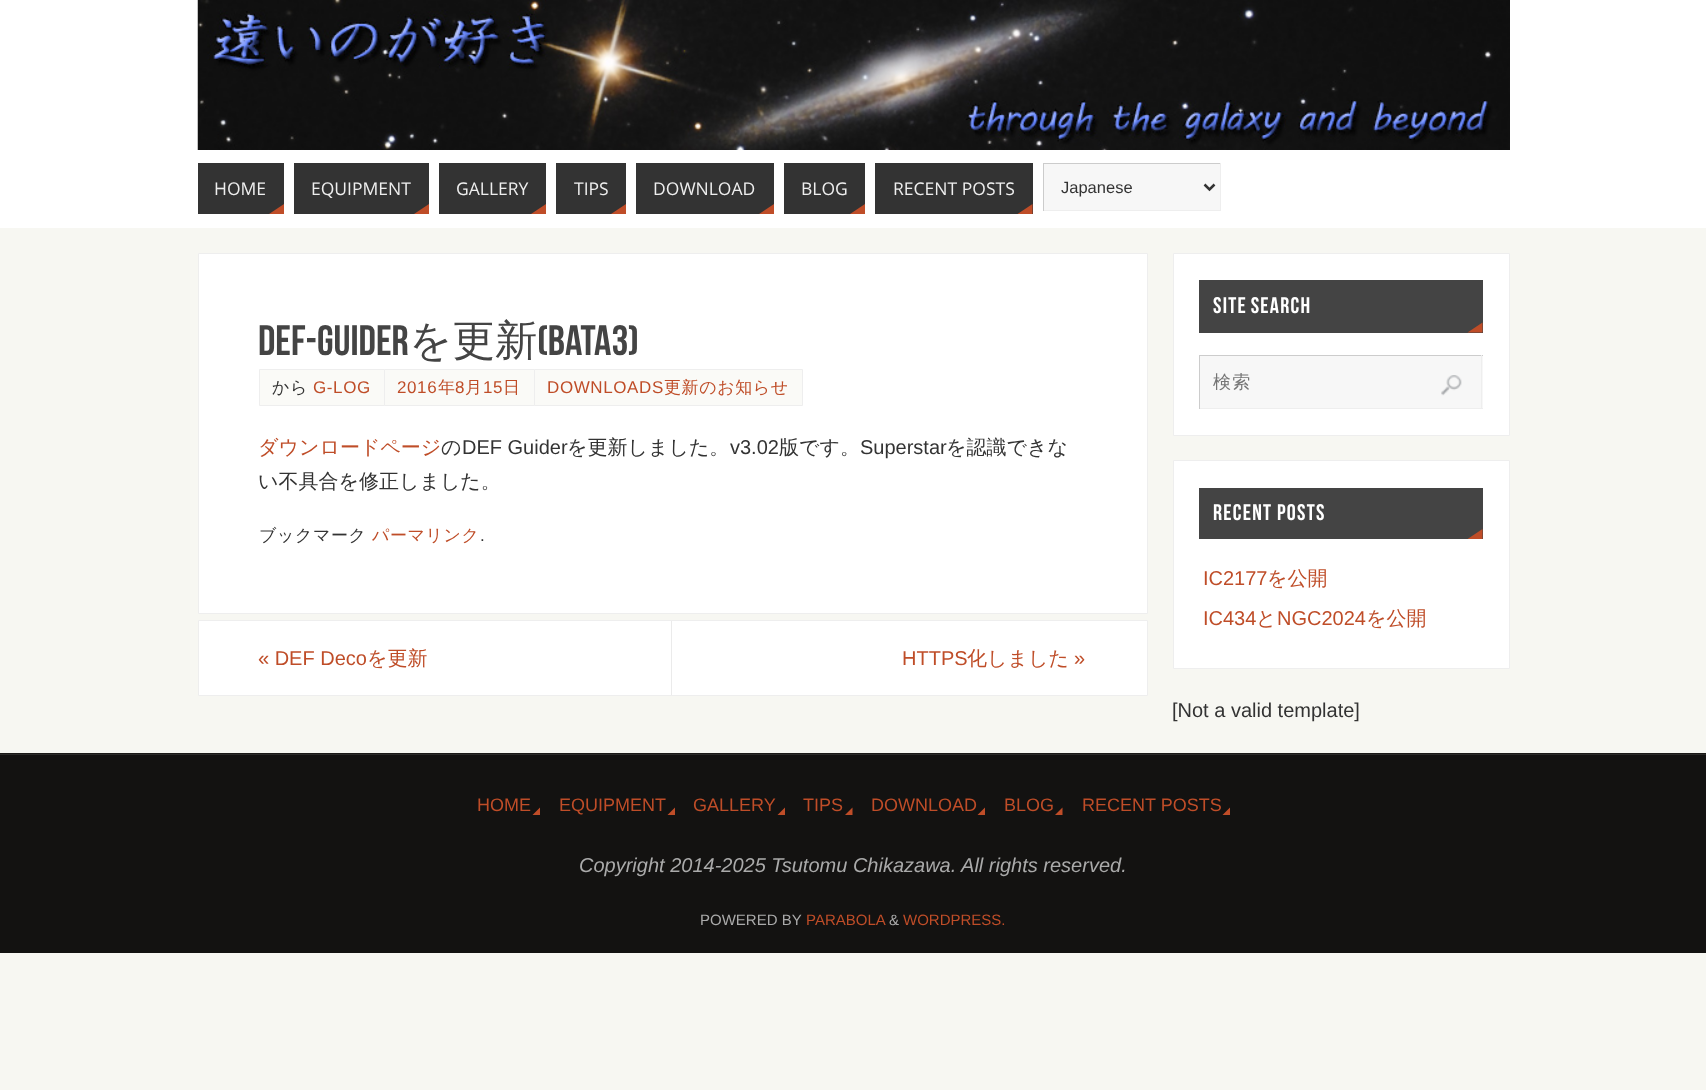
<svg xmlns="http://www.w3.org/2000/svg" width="1706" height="1090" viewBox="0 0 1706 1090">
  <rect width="100%" height="100%" fill="#f7f7f2"/>
  <path d="M0 0h1706v228H0z" fill="#fff"/>
  <image x="197" y="0" width="1313" height="150" href="img/1.png"/>
  <path d="M198 163h86v51H198z" fill="#333"/>
  <path d="M284 214H269L284 204Z" fill="#bf4d28"/>
  <path d="M294 163h135v51H294z" fill="#333"/>
  <path d="M429 214H414L429 204Z" fill="#bf4d28"/>
  <path d="M439 163h107v51H439z" fill="#333"/>
  <path d="M546 214H531L546 204Z" fill="#bf4d28"/>
  <path d="M556 163h70v51H556z" fill="#333"/>
  <path d="M626 214H611L626 204Z" fill="#bf4d28"/>
  <path d="M636 163h138v51H636z" fill="#333"/>
  <path d="M774 214H759L774 204Z" fill="#bf4d28"/>
  <path d="M784 163h81v51H784z" fill="#333"/>
  <path d="M865 214H850L865 204Z" fill="#bf4d28"/>
  <path d="M875 163h158v51H875z" fill="#333"/>
  <path d="M1032.5 214H1017.5L1032.5 204Z" fill="#bf4d28"/>
  <path d="M1044 164h176v46H1044z" fill="#f7f7f7"/>
  <path d="M1043 163h178v1H1043z" fill="#ccc"/>
  <path d="M1220 163h1v48H1220z" fill="#eee"/>
  <path d="M1043 210h178v1H1043z" fill="#eee"/>
  <path d="M1043 163h1v48H1043z" fill="#ccc"/>
  <path d="M1204.5 184.5L1209.5 189.5L1214.5 184.5" fill="none" stroke="#333" stroke-width="2.5"/>
  <path d="M198.5 253.5h949v360H198.5z" fill="#fff" stroke="#eee"/>
  <path d="M259.5 369.5h125v36H259.5z" fill="#fafaf7" stroke="#eee"/>
  <path d="M384.5 369.5h150v36H384.5z" fill="#fafaf7" stroke="#eee"/>
  <path d="M534.5 369.5h268v36H534.5z" fill="#fafaf7" stroke="#eee"/>
  <path d="M198.5 620.5h949v75H198.5z" fill="#fff" stroke="#eee"/>
  <path d="M671 621h1v74H671z" fill="#ebebeb"/>
  <path d="M1173.5 253.5h336v182H1173.5z" fill="#fff" stroke="#eee"/>
  <path d="M1199 280h284v53H1199z" fill="#444"/>
  <path d="M1482.5 332.5H1467.5L1482.5 322.5Z" fill="#bf4d28"/>
  <path d="M1200 356h283v52H1200z" fill="#f7f7f7"/>
  <path d="M1199 355h284v1H1199z" fill="#ccc"/>
  <path d="M1481 355h1v54H1481z" fill="#eee"/>
  <path d="M1199 408h284v1H1199z" fill="#eee"/>
  <path d="M1199 355h1v54H1199z" fill="#ccc"/>
  <image x="1441" y="375" width="21" height="21" href="img/2.png"/>
  <path d="M1173.5 460.5h336v208H1173.5z" fill="#fff" stroke="#eee"/>
  <path d="M1199 488h284v51H1199z" fill="#444"/>
  <path d="M1482.5 539H1467.5L1482.5 529Z" fill="#bf4d28"/>
  <path d="M0 753h1706v1H0z" fill="#1a1917"/>
  <path d="M0 755h1706v198H0z" fill="#131211"/>
  <path d="M0 754h1706v1H0z" fill="#2b2a29"/>
  <path d="M540 815H532.5L540 807.5Z" fill="#bf4d28"/>
  <path d="M675 815H667.5L675 807.5Z" fill="#bf4d28"/>
  <path d="M785 815H777.5L785 807.5Z" fill="#bf4d28"/>
  <path d="M852.5 815H845L852.5 807.5Z" fill="#bf4d28"/>
  <path d="M985 815H977.5L985 807.5Z" fill="#bf4d28"/>
  <path d="M1062.5 815H1055L1062.5 807.5Z" fill="#bf4d28"/>
  <path d="M1230 815H1222.5L1230 807.5Z" fill="#bf4d28"/>
  <g font-family="Open Sans" font-size="17.5" fill="#eee">
    <text x="214" y="195">HOME</text>
    <text x="311" y="195">EQUIPMENT</text>
    <text x="456" y="195">GALLERY</text>
    <text x="574" y="195">TIPS</text>
    <text x="653" y="195">DOWNLOAD</text>
    <text x="801" y="195">BLOG</text>
    <text x="893" y="195">RECENT POSTS</text>
  </g>
  <text x="1061" y="193" font-family="Liberation Sans" font-size="16.5" fill="#333">Japanese</text>
  <text x="258" y="355" font-family="Bebas Neue" font-size="42.5" fill="#444">DEF-Guider</text>
  <text x="409" y="355" font-family="WenQuanYi Zen Hei" font-size="42.5" font-weight="500" fill="#444">を更新</text>
  <text x="537" y="355" font-family="Bebas Neue" font-size="42.5" fill="#444">(Bata3)</text>
  <text x="272" y="393" font-family="WenQuanYi Zen Hei" font-size="17" font-weight="500" letter-spacing="0.6" fill="#333">から</text>
  <g font-family="Liberation Sans" font-size="17" letter-spacing="0.6" fill="#bf4d28">
    <text x="313" y="393">G-LOG</text>
    <text x="397" y="393">2016</text>
  </g>
  <text x="438" y="393" font-family="WenQuanYi Zen Hei" font-size="17" font-weight="500" letter-spacing="0.6" fill="#bf4d28">年</text>
  <text x="455" y="393" font-family="Liberation Sans" font-size="17" letter-spacing="0.6" fill="#bf4d28">8</text>
  <text x="465" y="393" font-family="WenQuanYi Zen Hei" font-size="17" font-weight="500" letter-spacing="0.6" fill="#bf4d28">月</text>
  <text x="483" y="393" font-family="Liberation Sans" font-size="17" letter-spacing="0.6" fill="#bf4d28">15</text>
  <text x="503" y="393" font-family="WenQuanYi Zen Hei" font-size="17" font-weight="500" letter-spacing="0.6" fill="#bf4d28">日</text>
  <text x="547" y="393" font-family="Liberation Sans" font-size="17" letter-spacing="0.6" fill="#bf4d28">DOWNLOADS</text>
  <text x="664" y="393" font-family="WenQuanYi Zen Hei" font-size="17" font-weight="500" letter-spacing="0.6" fill="#bf4d28">更新のお知らせ</text>
  <text x="258" y="454" font-family="WenQuanYi Zen Hei" font-size="20" font-weight="500" fill="#bf4d28">ダウンロードページ</text>
  <text x="441" y="454" font-family="WenQuanYi Zen Hei" font-size="20" font-weight="500" fill="#333">の</text>
  <text x="462" y="454" font-family="Liberation Sans" font-size="20" fill="#333">DEF Guider</text>
  <text x="567" y="454" font-family="WenQuanYi Zen Hei" font-size="20" font-weight="500" fill="#333">を更新しました。</text>
  <text x="730" y="454" font-family="Liberation Sans" font-size="20" fill="#333">v3.02</text>
  <text x="779" y="454" font-family="WenQuanYi Zen Hei" font-size="20" font-weight="500" fill="#333">版です。</text>
  <text x="860" y="454" font-family="Liberation Sans" font-size="20" fill="#333">Superstar</text>
  <g font-family="WenQuanYi Zen Hei" font-size="20" font-weight="500" fill="#333">
    <text x="946" y="454">を認識できな</text>
    <text x="258" y="488">い不具合を修正しました。</text>
  </g>
  <text x="259" y="541" font-family="WenQuanYi Zen Hei" font-size="17" font-weight="500" letter-spacing="0.6" fill="#333">ブックマーク</text>
  <text x="372" y="541" font-family="WenQuanYi Zen Hei" font-size="17" font-weight="500" letter-spacing="0.6" fill="#bf4d28">パーマリンク</text>
  <text x="480" y="541" font-family="Liberation Sans" font-size="17" letter-spacing="0.6" fill="#333">.</text>
  <text x="258" y="665" font-family="Liberation Sans" font-size="20" fill="#bf4d28">« DEF Deco</text>
  <text x="367" y="665" font-family="WenQuanYi Zen Hei" font-size="20" font-weight="500" fill="#bf4d28">を更新</text>
  <text x="902" y="665" font-family="Liberation Sans" font-size="20" fill="#bf4d28">HTTPS</text>
  <text x="967" y="665" font-family="WenQuanYi Zen Hei" font-size="20" font-weight="500" fill="#bf4d28">化しました</text>
  <text x="1074" y="665" font-family="Liberation Sans" font-size="20" fill="#bf4d28">»</text>
  <text x="1213" y="313" word-spacing="-1" font-family="Bebas Neue" font-size="22.5" letter-spacing="1.25" fill="#fff">SITE SEARCH</text>
  <text x="1213" y="388" font-family="WenQuanYi Zen Hei" font-size="18" font-weight="500" letter-spacing="1.25" fill="#757575">検索</text>
  <text x="1213" y="520" font-family="Bebas Neue" font-size="22.5" letter-spacing="1.25" fill="#fff">RECENT POSTS</text>
  <text x="1203" y="585" font-family="Liberation Sans" font-size="20" fill="#bf4d28">IC2177</text>
  <text x="1267" y="585" font-family="WenQuanYi Zen Hei" font-size="20" font-weight="500" fill="#bf4d28">を公開</text>
  <text x="1203" y="625" font-family="Liberation Sans" font-size="20" fill="#bf4d28">IC434</text>
  <text x="1256" y="625" font-family="WenQuanYi Zen Hei" font-size="20" font-weight="500" fill="#bf4d28">と</text>
  <text x="1277" y="625" font-family="Liberation Sans" font-size="20" fill="#bf4d28">NGC2024</text>
  <text x="1366" y="625" font-family="WenQuanYi Zen Hei" font-size="20" font-weight="500" fill="#bf4d28">を公開</text>
  <text x="1172" y="717" font-family="Liberation Sans" font-size="20" fill="#333">[Not a valid template]</text>
  <g font-family="Liberation Sans" font-size="18" fill="#bf4d28">
    <text x="477" y="811">HOME</text>
    <text x="559" y="811">EQUIPMENT</text>
    <text x="693" y="811">GALLERY</text>
    <text x="803" y="811">TIPS</text>
    <text x="871" y="811">DOWNLOAD</text>
    <text x="1004" y="811">BLOG</text>
    <text x="1082" y="811">RECENT POSTS</text>
  </g>
  <text x="579" y="872" font-family="Liberation Sans" font-size="20" font-style="italic" fill="#aaa">Copyright 2014-2025 Tsutomu Chikazawa. All rights reserved.</text>
  <text x="700" y="925" font-family="Liberation Sans" font-size="15" fill="#aaa">POWERED BY</text>
  <text x="806" y="925" font-family="Liberation Sans" font-size="15" fill="#bf4d28">PARABOLA</text>
  <text x="889" y="925" font-family="Liberation Sans" font-size="15" fill="#aaa">&amp;</text>
  <text x="903" y="925" font-family="Liberation Sans" font-size="15" fill="#bf4d28">WORDPRESS.</text>
</svg>
